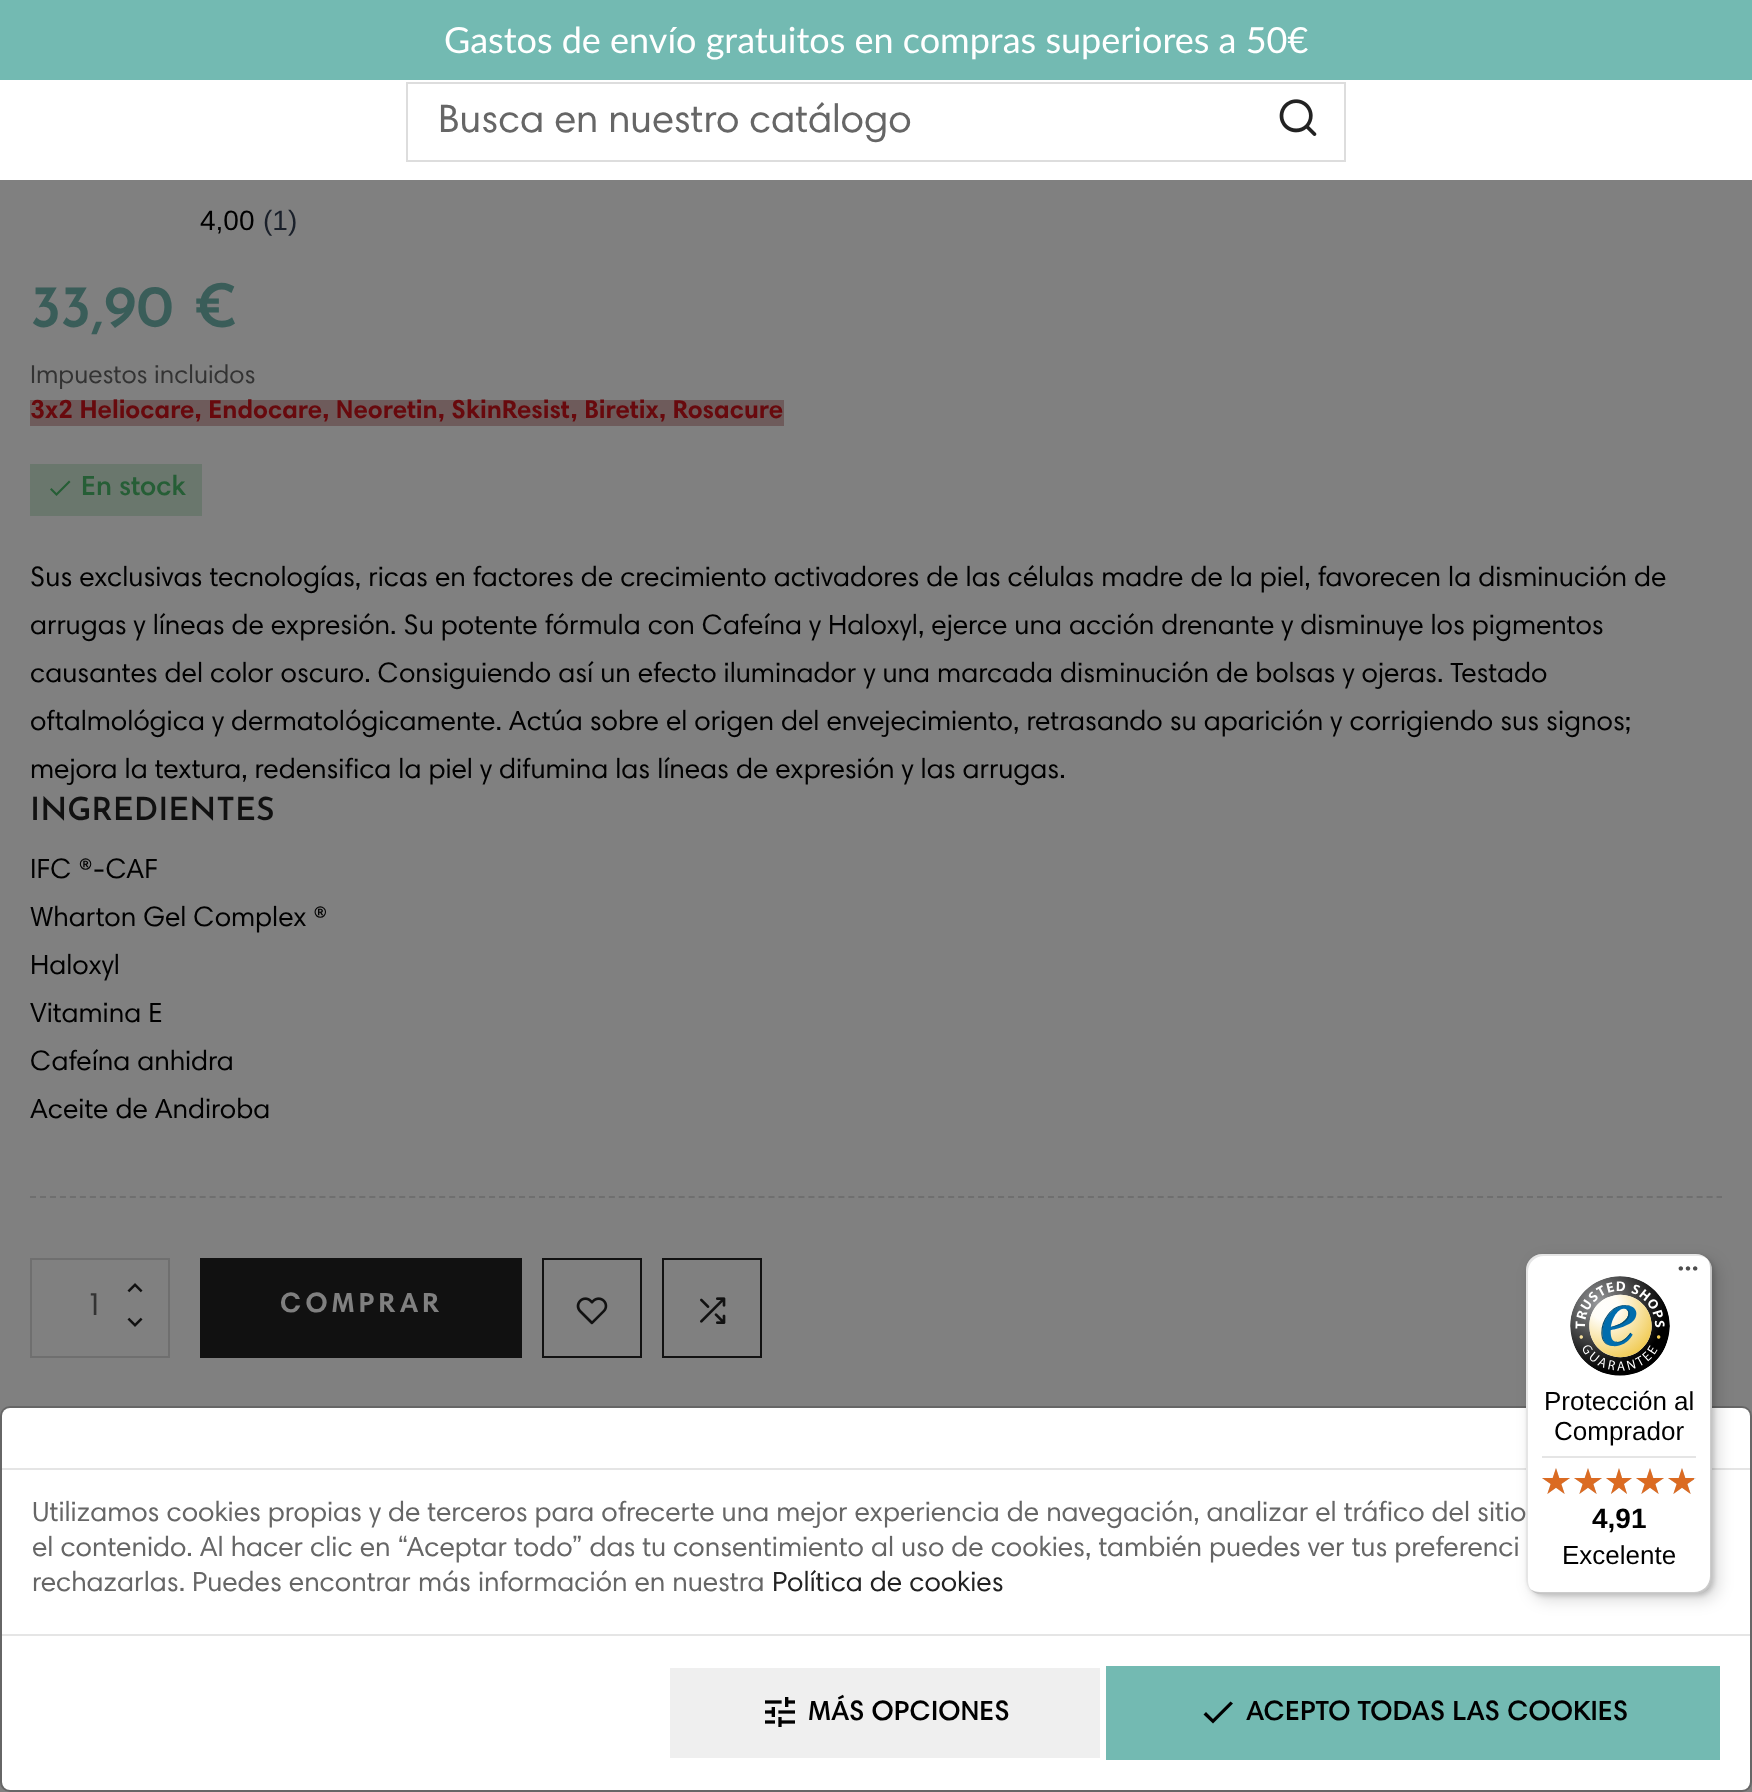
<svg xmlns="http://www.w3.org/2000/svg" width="1752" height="1792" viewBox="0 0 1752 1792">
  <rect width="100%" height="100%" fill="#808080"/>
  <path d="M0 0h1752v80H0z" fill="#73bab2"/>
  <path d="M0 80h1752v100H0z" fill="#fff"/>
  <path d="M407 83h938v78H407z" fill="none" stroke="#ddd" stroke-width="2"/>
  <image x="1279" y="99" width="38" height="37" href="img/1.png"/>
  <path d="M30 400h754v26H30z" fill="#6e5b5b"/>
  <path d="M30 464h172v52H30z" fill="#6a776d"/>
  <path d="M56.5 493L69 480.5L70.5 482L56.5 496L50 489.5L51.5 488Z" fill="#265e36"/>
  <path d="M30 1197H1722" fill="none" stroke="#6f6f6f" stroke-width="2" stroke-dasharray="6 3.98"/>
  <path d="M31 1259h138v98H31z" fill="none" stroke="#6f6f6f" stroke-width="2"/>
  <image x="127" y="1283" width="16" height="10" href="img/2.png"/>
  <image x="127" y="1317" width="16" height="10" href="img/3.png"/>
  <path d="M200 1258h322v100H200z" fill="#111"/>
  <path d="M543 1259h98v98H543z" fill="none" stroke="#111" stroke-width="2"/>
  <image x="576" y="1297" width="32" height="28" href="img/4.png"/>
  <path d="M663 1259h98v98H663z" fill="none" stroke="#111" stroke-width="2"/>
  <image x="700" y="1297" width="26" height="27" href="img/5.png"/>
  <rect x="2" y="1408" width="1748" height="382" rx="8" fill="#fff"/>
  <rect x="1" y="1407" width="1750" height="384" rx="9" fill="none" stroke="#00000033" stroke-width="2"/>
  <path d="M2 1468h1748v2H2z" fill="#e5e5e5"/>
  <rect x="1532" y="1260" width="186" height="340" rx="16" fill="#00000026" filter="blur(8px)"/>
  <rect x="1528" y="1256" width="186" height="340" rx="16" fill="#00000026" filter="blur(2px)"/>
  <rect x="1526" y="1254" width="186" height="340" rx="16" fill="#fff"/>
  <path d="M1544 1256H1698C1702 1256 1705 1257 1708 1259C1705 1256 1701 1254 1696 1254H1542C1533 1254 1526 1261 1526 1270V1578C1526 1583 1528 1587 1531 1590C1529 1587 1528 1584 1528 1580V1272C1528 1263 1535 1256 1544 1256Z" fill="#0000001a"/>
  <path d="M1530 1589C1533 1592 1537 1594 1542 1594H1696C1705 1594 1712 1587 1712 1578V1270C1712 1265 1710 1261 1707 1258C1709 1261 1710 1264 1710 1268V1576C1710 1585 1703 1592 1694 1592H1540C1536 1592 1533 1591 1530 1589Z" fill="#00000033"/>
  <path d="M1531 1589C1534 1592 1538 1594 1542 1594H1696C1705 1594 1712 1587 1712 1578V1270C1712 1266 1710 1262 1707 1259C1710 1262 1711 1265 1711 1269V1577C1711 1586 1704 1593 1695 1593H1541C1537 1593 1534 1592 1531 1589Z" fill="#32323233"/>
  <path d="M1531 1589C1534 1592 1538 1594 1542 1594H1696C1705 1594 1712 1587 1712 1578V1270C1712 1266 1710 1262 1707 1259C1710 1262 1711 1265 1711 1269V1577C1711 1586 1704 1593 1695 1593H1541C1537 1593 1534 1592 1531 1589Z" fill="#ffffff4d"/>
  <image x="1678" y="1266" width="20" height="5" href="img/6.png"/>
  <image x="1570" y="1276" width="100" height="100" href="img/7.png"/>
  <path d="M1542 1456h154v2H1542z" fill="#e5e5e5"/>
  <image x="1542" y="1468" width="28" height="26" href="img/8.png"/>
  <image x="1574" y="1468" width="28" height="26" href="img/8.png"/>
  <image x="1606" y="1468" width="26" height="26" href="img/9.png"/>
  <image x="1636" y="1468" width="28" height="26" href="img/8.png"/>
  <image x="1668" y="1468" width="28" height="26" href="img/8.png"/>
  <image x="1542" y="1468" width="28" height="26" href="img/10.png"/>
  <image x="1574" y="1468" width="28" height="26" href="img/10.png"/>
  <image x="1606" y="1468" width="26" height="26" href="img/11.png"/>
  <image x="1636" y="1468" width="28" height="26" href="img/10.png"/>
  <image x="1668" y="1468" width="26" height="26" href="img/12.png"/>
  <path d="M2 1634h1748v2H2z" fill="#e5e5e5"/>
  <path d="M670 1668h430v90H670z" fill="#efefef"/>
  <image x="765" y="1697" width="30" height="30" href="img/13.png"/>
  <path d="M1106 1666h614v94H1106z" fill="#73bab2"/>
  <path d="M1213 1719L1230.5 1701.5L1233 1703.5L1213 1723.5L1203.5 1714.5L1206 1712Z" fill="#000"/>
  <text x="444" y="53" font-family="Lato" font-size="36" fill="#fff">Gastos de envío gratuitos en compras superiores a 50€</text>
  <text x="438" y="132" font-family="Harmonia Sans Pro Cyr" font-size="40" fill="#666">Busca en nuestro catálogo</text>
  <text x="200" y="230" font-family="Liberation Sans" font-size="28" fill="#000">4,00</text>
  <text x="263" y="230" font-family="Liberation Sans" font-size="28" fill="#1a202a">(1)</text>
  <text x="30" y="327" font-family="Josefin Sans" font-size="60" font-weight="600" fill="#3a5d59">33,90 €</text>
  <text x="30" y="383" font-family="Harmonia Sans Pro Cyr" font-size="26" fill="#333">Impuestos incluidos</text>
  <text x="30" y="418" font-family="Harmonia Sans Pro Cyr" font-size="26" font-weight="bold" fill="#68090d">3x2 Heliocare, Endocare, Neoretin, SkinResist, Biretix, Rosacure</text>
  <text x="81" y="495" font-family="Harmonia Sans Pro Cyr" font-size="28" font-weight="600" fill="#265e36">En stock</text>
  <g font-family="Harmonia Sans Pro Cyr" font-size="28" fill="#000">
    <text x="30" y="586">Sus exclusivas tecnologías, ricas en factores de crecimiento activadores de las células madre de la piel, favorecen la disminución de</text>
    <text x="30" y="634">arrugas y líneas de expresión. Su potente fórmula con Cafeína y Haloxyl, ejerce una acción drenante y disminuye los pigmentos</text>
    <text x="30" y="682">causantes del color oscuro. Consiguiendo así un efecto iluminador y una marcada disminución de bolsas y ojeras. Testado</text>
    <text x="30" y="730">oftalmológica y dermatológicamente. Actúa sobre el origen del envejecimiento, retrasando su aparición y corrigiendo sus signos;</text>
    <text x="30" y="778">mejora la textura, redensifica la piel y difumina las líneas de expresión y las arrugas.</text>
  </g>
  <text x="30" y="820" font-family="Josefin Sans" font-size="32" font-weight="600" fill="#111">INGREDIENTES</text>
  <g font-family="Harmonia Sans Pro Cyr" font-size="28" fill="#000">
    <text x="30" y="878">IFC ®-CAF</text>
    <text x="30" y="926">Wharton Gel Complex ®</text>
    <text x="30" y="974">Haloxyl</text>
    <text x="30" y="1022">Vitamina E</text>
    <text x="30" y="1070">Cafeína anhidra</text>
    <text x="30" y="1118">Aceite de Andiroba</text>
  </g>
  <text x="86" y="1315" font-family="Harmonia Sans Pro Cyr" font-size="32" fill="#333">1</text>
  <text x="280" y="1312" font-family="Harmonia Sans Pro Cyr" font-size="28" font-weight="bold" letter-spacing="4" fill="#808080">COMPRAR</text>
  <g font-family="Liberation Sans" font-size="26" fill="#000">
    <text x="1544" y="1410">Protección al</text>
    <text x="1554" y="1440">Comprador</text>
  </g>
  <text x="1592" y="1528" font-family="Liberation Sans" font-size="28" font-weight="bold" fill="#000">4,91</text>
  <text x="1562" y="1564" font-family="Liberation Sans" font-size="26" fill="#000">Excelente</text>
  <g font-family="Harmonia Sans Pro Cyr" font-size="28" fill="#666">
    <text x="32" y="1521">Utilizamos cookies propias y de terceros para ofrecerte una mejor experiencia de navegación, analizar el tráfico del sitio</text>
    <text x="32" y="1556">el contenido. Al hacer clic en “Aceptar todo” das tu consentimiento al uso de cookies, también puedes ver tus preferenci</text>
    <text x="32" y="1591">rechazarlas. Puedes encontrar más información en nuestra</text>
  </g>
  <text x="772" y="1591" font-family="Harmonia Sans Pro Cyr" font-size="28" fill="#222">Política de cookies</text>
  <g font-family="Harmonia Sans Pro Cyr" font-size="28" font-weight="600" fill="#000">
    <text x="808" y="1720">MÁS OPCIONES</text>
    <text x="1246" y="1720">ACEPTO TODAS LAS COOKIES</text>
  </g>
</svg>
